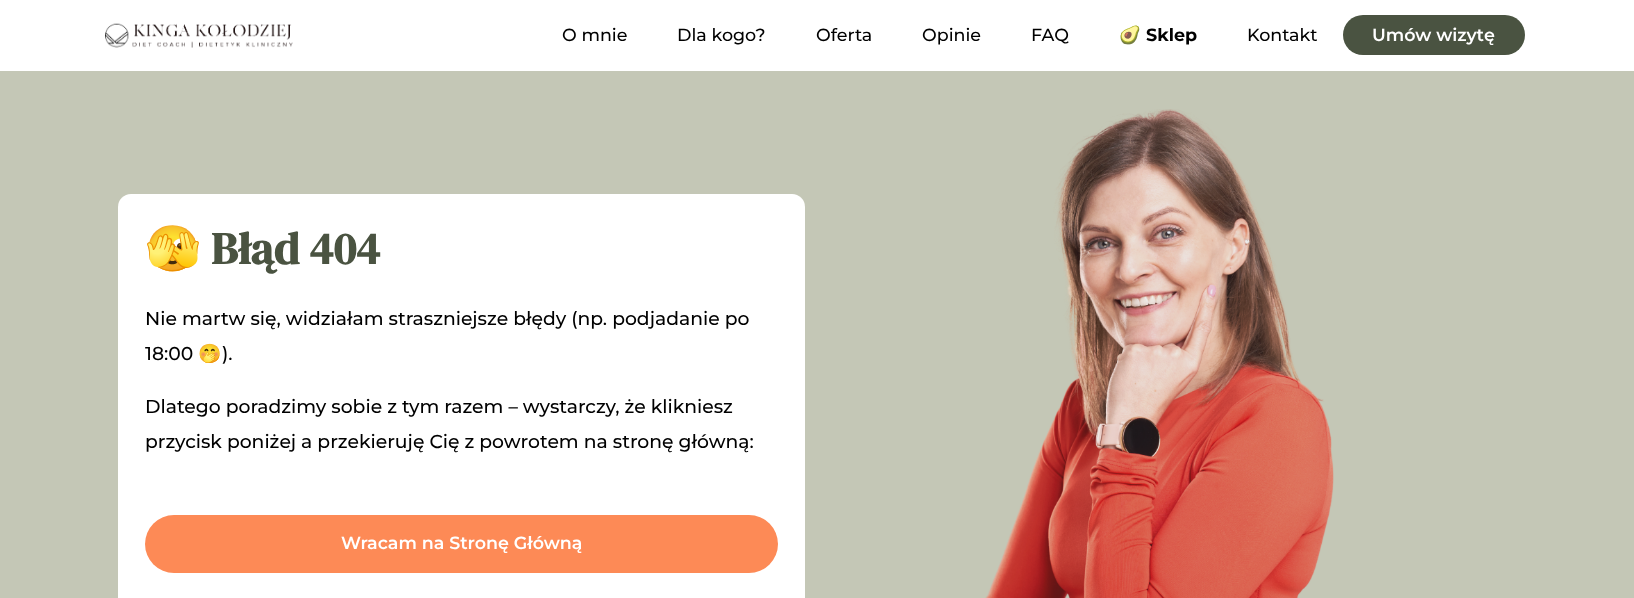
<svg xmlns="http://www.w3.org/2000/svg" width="1634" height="598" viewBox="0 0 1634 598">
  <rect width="100%" height="100%" fill="#fff"/>
  <image x="105" y="23" width="188" height="25" href="img/1.png"/>
  <rect x="1343" y="15" width="182" height="40" rx="20" fill="#4a5341"/>
  <path d="M0 71h1634v527H0z" fill="#c4c7b6"/>
  <rect x="118" y="194" width="687" height="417" rx="13" fill="#fff"/>
  <rect x="145" y="515" width="633" height="58" rx="29" fill="#fd8a56"/>
  <image x="985" y="109" width="349" height="489" href="img/2.png"/>
  <g font-family="Montserrat" font-size="17.5" font-weight="500" fill="#000">
    <text x="562" y="41">O mnie</text>
    <text x="677" y="41">Dla kogo?</text>
    <text x="816" y="41">Oferta</text>
    <text x="922" y="41">Opinie</text>
    <text x="1031" y="41">FAQ</text>
  </g>
  <text x="1119" y="41" font-family="Noto Color Emoji" font-size="17.5" fill="#000">🥑</text>
  <text x="1146" y="41" font-family="Montserrat" font-size="17.5" font-weight="bold" fill="#000">Sklep</text>
  <text x="1247" y="41" font-family="Montserrat" font-size="17.5" font-weight="500" fill="#000">Kontakt</text>
  <text x="1372" y="41" font-family="Montserrat" font-size="17.5" font-weight="600" fill="#fff">Umów wizytę</text>
  <text x="145" y="264" font-family="Noto Color Emoji" font-size="45" font-weight="bold" fill="#4a5341">🫣</text>
  <text x="211" y="264" font-family="DM Serif Display" font-size="45" font-weight="bold" fill="#4a5341">Błąd 404</text>
  <g font-family="Montserrat" font-size="18.75" font-weight="500" fill="#000">
    <text x="145" y="325">Nie martw się, widziałam straszniejsze błędy (np. podjadanie po</text>
    <text x="145" y="360">18:00</text>
  </g>
  <text x="198" y="360" font-family="Noto Color Emoji" font-size="18.75" fill="#000">🤭</text>
  <g font-family="Montserrat" font-size="18.75" font-weight="500" fill="#000">
    <text x="222" y="360">).</text>
    <text x="145" y="413">Dlatego poradzimy sobie z tym razem – wystarczy, że klikniesz</text>
    <text x="145" y="448">przycisk poniżej a przekieruję Cię z powrotem na stronę główną:</text>
  </g>
  <text x="341" y="549" font-family="Montserrat" font-size="17.5" font-weight="600" fill="#fff">Wracam na Stronę Główną</text>
</svg>
